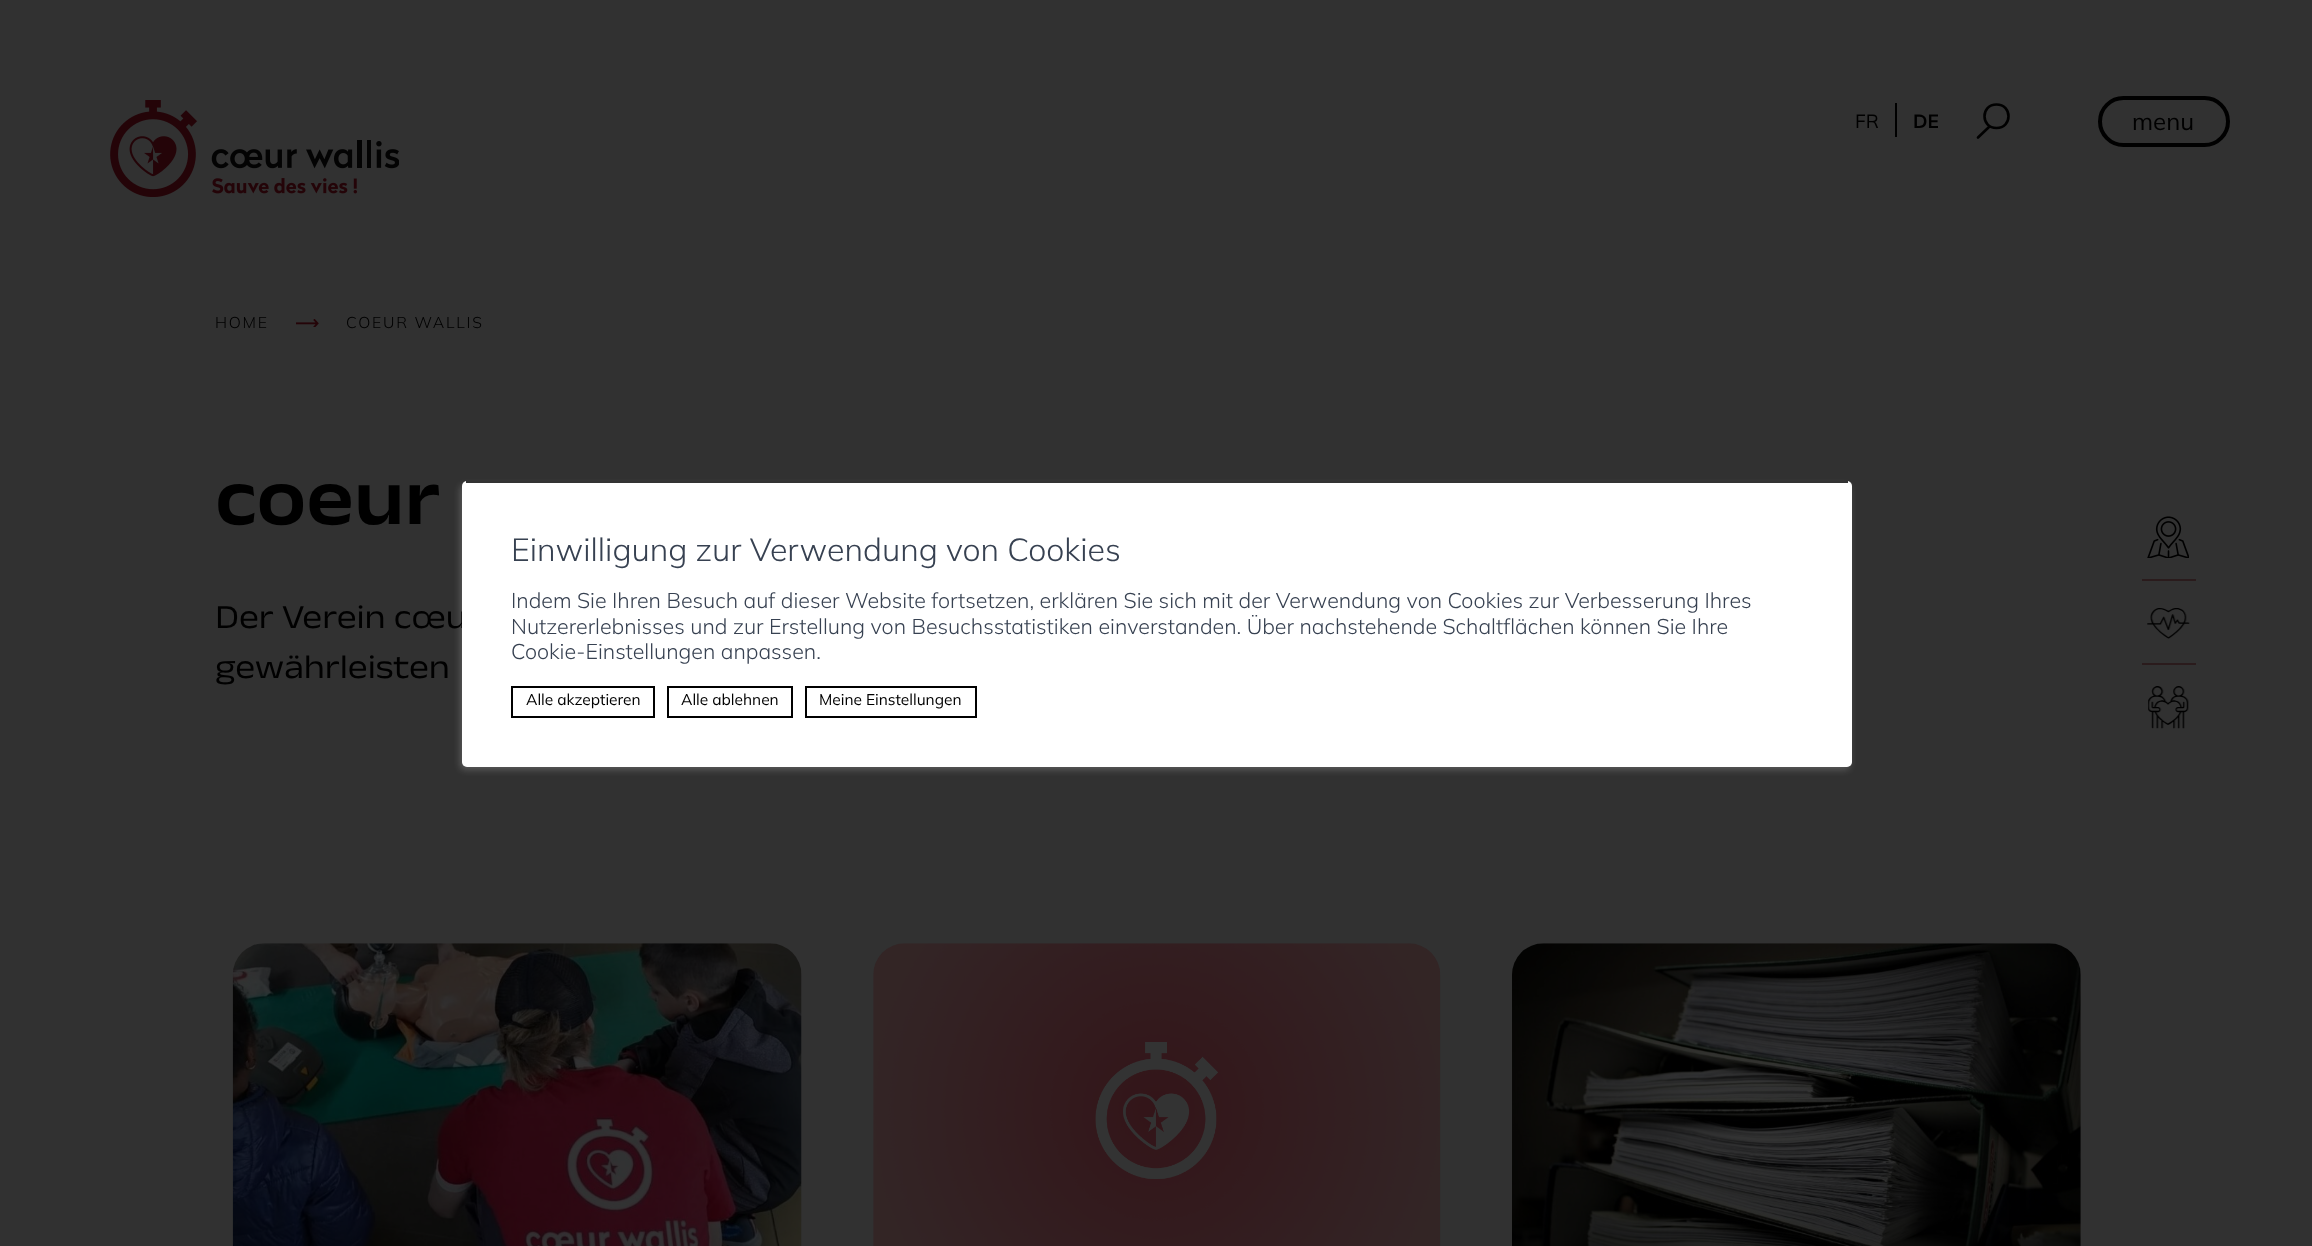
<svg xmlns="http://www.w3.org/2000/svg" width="2312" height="1246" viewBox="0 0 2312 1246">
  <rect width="100%" height="100%" fill="#313131"/>
  <image x="110" y="100" width="289" height="97" href="img/1.png"/>
  <path d="M1895 103h2v34H1895z" fill="#000"/>
  <path d="M1996.5 128C2012.5 128 2012.5 104.5 1996.5 104.5C1980.5 104.5 1980.5 128 1996.5 128Z" fill="none" stroke="#000" stroke-width="2.6"/>
  <path d="M1989 127L1978 137.5" fill="none" stroke="#000" stroke-width="2.6" stroke-linecap="round"/>
  <rect x="2100" y="98" width="128" height="47" rx="23.5" fill="none" stroke="#000" stroke-width="4"/>
  <image x="296" y="319" width="23" height="8" href="img/2.png"/>
  <image x="232" y="943" width="570" height="303" href="img/3.png"/>
  <image x="873" y="943" width="568" height="303" href="img/4.png"/>
  <image x="1512" y="943" width="569" height="303" href="img/5.png"/>
  <image x="2147" y="516" width="42" height="42" href="img/6.png"/>
  <path d="M2142 579h54v2H2142z" fill="#2a1b1c"/>
  <image x="2147" y="608" width="43" height="31" href="img/7.png"/>
  <path d="M2142 663h54v2H2142z" fill="#2a1b1c"/>
  <image x="2148" y="686" width="41" height="43" href="img/8.png"/>
  <rect x="460" y="485" width="1390" height="285" rx="5" fill="#ffffff33" filter="blur(3.5px)"/>
  <text x="1855" y="128" font-family="Mulish" font-size="19" fill="#000">FR</text>
  <text x="1913" y="128" font-family="Mulish" font-size="19" font-weight="bold" fill="#000">DE</text>
  <text x="2132" y="130" font-family="Mulish" font-size="24" fill="#000">menu</text>
  <g font-family="Mulish" font-size="15.75" font-weight="300" letter-spacing="1.75" fill="#000">
    <text x="215" y="328">HOME</text>
    <text x="346" y="328">COEUR WALLIS</text>
  </g>
  <text x="215" y="524" font-family="Anek Devanagari" font-size="80" font-weight="600" fill="#000">coeur</text>
  <g font-family="Anek Devanagari" font-size="34" fill="#000">
    <text x="215" y="628">Der Verein cœu</text>
    <text x="215" y="678">gewährleisten</text>
  </g>
  <rect x="462" y="481" width="1390" height="286" rx="5" fill="#fff"/>
  <path d="M466 481h1382v2H466z" fill="#333"/>
  <text x="511" y="561" font-family="Mulish" font-size="32.1" font-weight="300" fill="#374151">Einwilligung zur Verwendung von Cookies</text>
  <g font-family="Mulish" font-size="21.4" font-weight="300" fill="#374151">
    <text x="511" y="608">Indem Sie Ihren Besuch auf dieser Website fortsetzen, erklären Sie sich mit der Verwendung von Cookies zur Verbesserung Ihres</text>
    <text x="511" y="634">Nutzererlebnisses und zur Erstellung von Besuchsstatistiken einverstanden. Über nachstehende Schaltflächen können Sie Ihre</text>
    <text x="511" y="659">Cookie-Einstellungen anpassen.</text>
  </g>
  <path d="M512 687h142v30H512z" fill="none" stroke="#000" stroke-width="2"/>
  <text x="526" y="705" font-family="Mulish" font-size="15.5" fill="#000">Alle akzeptieren</text>
  <path d="M668 687h124v30H668z" fill="none" stroke="#000" stroke-width="2"/>
  <text x="681" y="705" font-family="Mulish" font-size="15.5" fill="#000">Alle ablehnen</text>
  <path d="M806 687h170v30H806z" fill="none" stroke="#000" stroke-width="2"/>
  <text x="819" y="705" font-family="Mulish" font-size="15.5" fill="#000">Meine Einstellungen</text>
</svg>
